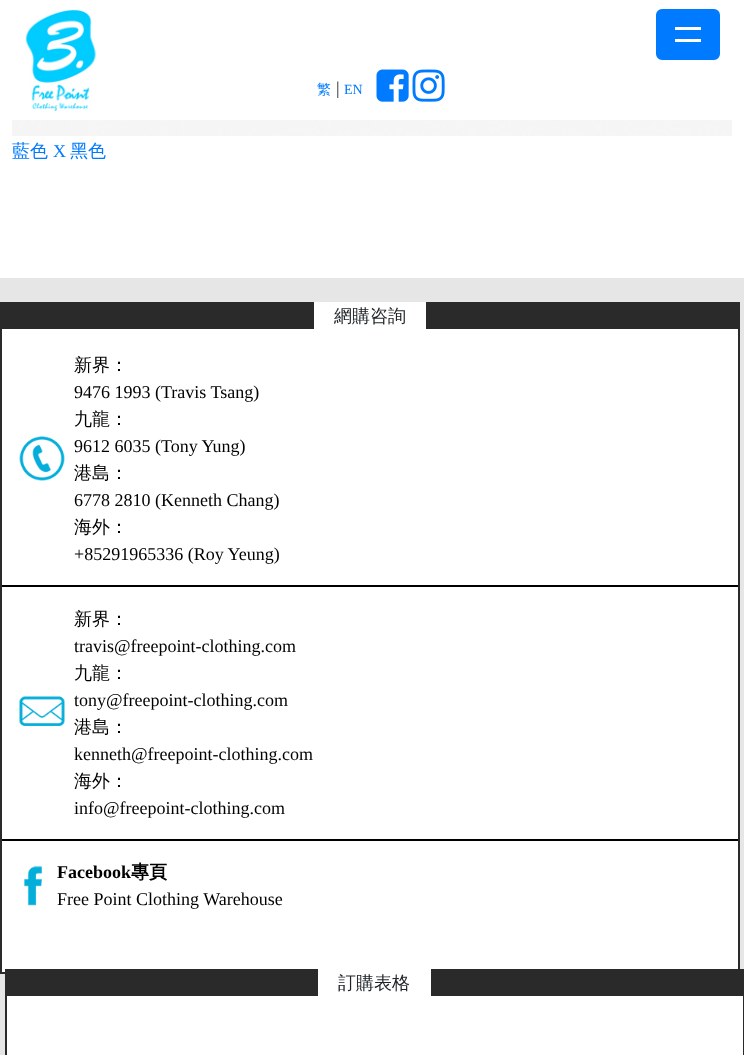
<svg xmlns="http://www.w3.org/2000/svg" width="744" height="1055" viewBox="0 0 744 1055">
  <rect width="100%" height="100%" fill="#e6e6e6"/>
  <path d="M0 0h744v278H0z" fill="#fff"/>
  <image x="25" y="10" width="71" height="101" href="img/1.png"/>
  <rect x="657" y="10" width="62" height="49" rx="5" fill="#007bff" stroke="#007bff" stroke-width="2"/>
  <path d="M675 27h26v3H675z" fill="#fff"/>
  <path d="M675 39h26v3H675z" fill="#fff"/>
  <image x="376" y="69" width="33" height="33" href="img/2.png"/>
  <image x="412" y="69" width="33" height="33" href="img/3.png"/>
  <image x="12" y="120" width="720" height="16" href="img/4.png"/>
  <path d="M314 302h112v27H314z" fill="#fff"/>
  <path d="M0 302h314v27H0z" fill="#2a2a2a"/>
  <path d="M426 302h314v27H426z" fill="#2a2a2a"/>
  <path d="M2 329h736v643H2z" fill="#fff"/>
  <path d="M738 329h2v645H738z" fill="#2a2a2a"/>
  <path d="M0 972h5v2H0z" fill="#2a2a2a"/>
  <path d="M0 329h2v645H0z" fill="#2a2a2a"/>
  <image x="19" y="436" width="46" height="45" href="img/5.png"/>
  <path d="M2 585h736v2H2z" fill="#000"/>
  <image x="19" y="696" width="46" height="30" href="img/6.png"/>
  <path d="M2 839h736v2H2z" fill="#000"/>
  <image x="24" y="865" width="18" height="41" href="img/7.png"/>
  <path d="M318 972h113v24H318z" fill="#fff"/>
  <path d="M5 969h313v27H5z" fill="#2a2a2a"/>
  <path d="M431 969h313v27H431z" fill="#2a2a2a"/>
  <path d="M7 996h736v59H7z" fill="#fff"/>
  <path d="M743 996h1v59H743z" fill="#2a2a2a"/>
  <path d="M5 996h2v59H5z" fill="#2a2a2a"/>
  <text x="317" y="94" font-family="WenQuanYi Zen Hei" font-size="14" font-weight="500" fill="#007bff">繁</text>
  <text x="336" y="94" font-family="Liberation Serif" font-size="18" fill="#212529">|</text>
  <text x="344" y="94" font-family="Liberation Serif" font-size="14" fill="#007bff">EN</text>
  <text x="12" y="157" font-family="WenQuanYi Zen Hei" font-size="18" font-weight="500" fill="#007bff">藍色</text>
  <text x="53" y="157" font-family="Liberation Serif" font-size="18" fill="#007bff">X</text>
  <text x="70" y="157" font-family="WenQuanYi Zen Hei" font-size="18" font-weight="500" fill="#007bff">黑色</text>
  <text x="334" y="322" font-family="WenQuanYi Zen Hei" font-size="18" font-weight="500" fill="#212529">網購咨詢</text>
  <text x="74" y="371" font-family="WenQuanYi Zen Hei" font-size="18" font-weight="500" fill="#000">新界：</text>
  <text x="74" y="398" font-family="Liberation Serif" font-size="18" fill="#000">9476 1993 (Travis Tsang)</text>
  <text x="74" y="425" font-family="WenQuanYi Zen Hei" font-size="18" font-weight="500" fill="#000">九龍：</text>
  <text x="74" y="452" font-family="Liberation Serif" font-size="18" fill="#000">9612 6035 (Tony Yung)</text>
  <text x="74" y="479" font-family="WenQuanYi Zen Hei" font-size="18" font-weight="500" fill="#000">港島：</text>
  <text x="74" y="506" font-family="Liberation Serif" font-size="18" fill="#000">6778 2810 (Kenneth Chang)</text>
  <text x="74" y="533" font-family="WenQuanYi Zen Hei" font-size="18" font-weight="500" fill="#000">海外：</text>
  <text x="74" y="560" font-family="Liberation Serif" font-size="18" fill="#000">+85291965336 (Roy Yeung)</text>
  <text x="74" y="625" font-family="WenQuanYi Zen Hei" font-size="18" font-weight="500" fill="#000">新界：</text>
  <text x="74" y="652" font-family="Liberation Serif" font-size="18" fill="#000">travis@freepoint-clothing.com</text>
  <text x="74" y="679" font-family="WenQuanYi Zen Hei" font-size="18" font-weight="500" fill="#000">九龍：</text>
  <text x="74" y="706" font-family="Liberation Serif" font-size="18" fill="#000">tony@freepoint-clothing.com</text>
  <text x="74" y="733" font-family="WenQuanYi Zen Hei" font-size="18" font-weight="500" fill="#000">港島：</text>
  <text x="74" y="760" font-family="Liberation Serif" font-size="18" fill="#000">kenneth@freepoint-clothing.com</text>
  <text x="74" y="787" font-family="WenQuanYi Zen Hei" font-size="18" font-weight="500" fill="#000">海外：</text>
  <text x="74" y="814" font-family="Liberation Serif" font-size="18" fill="#000">info@freepoint-clothing.com</text>
  <text x="57" y="878" font-family="Liberation Serif" font-size="18" font-weight="bold" fill="#000">Facebook</text>
  <text x="131" y="878" font-family="WenQuanYi Zen Hei" font-size="18" font-weight="bold" fill="#000">專頁</text>
  <text x="57" y="905" font-family="Liberation Serif" font-size="18" fill="#000">Free Point Clothing Warehouse</text>
  <text x="338" y="989" font-family="WenQuanYi Zen Hei" font-size="18" font-weight="500" fill="#212529">訂購表格</text>
</svg>
